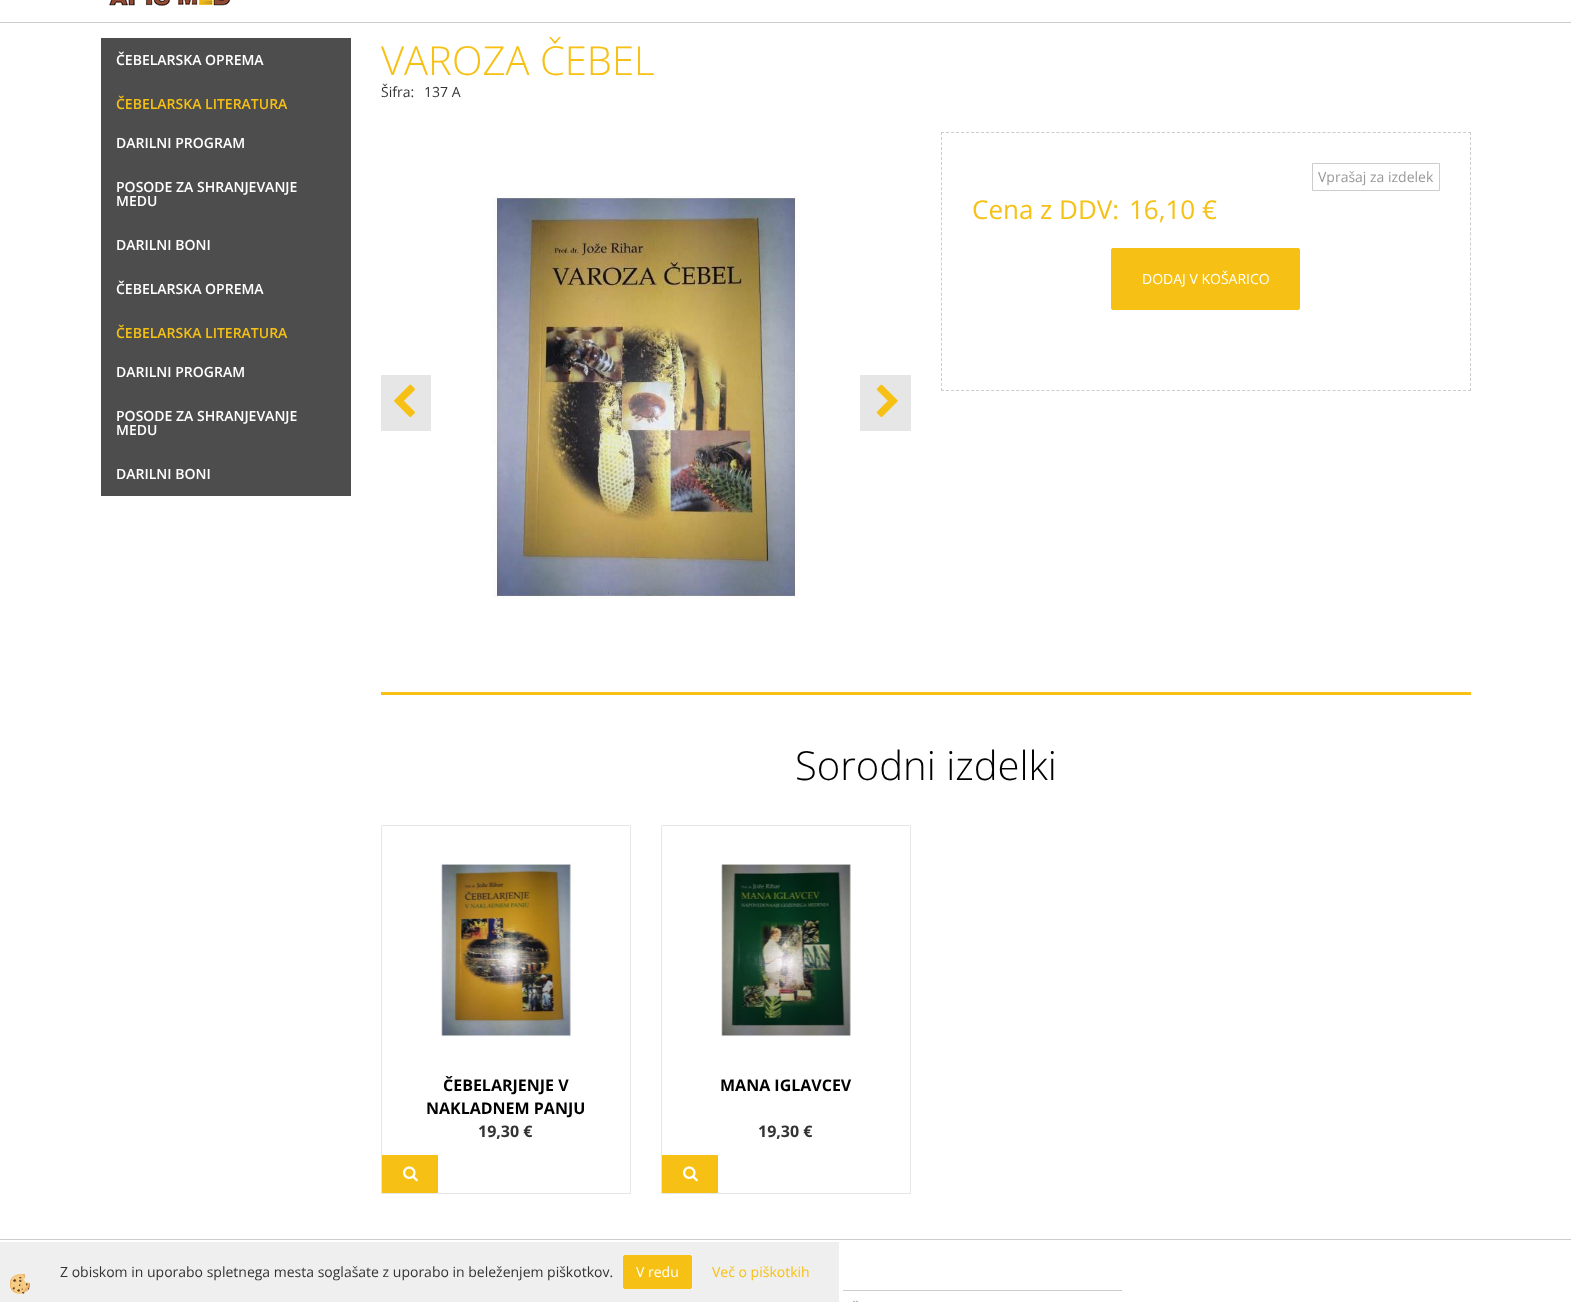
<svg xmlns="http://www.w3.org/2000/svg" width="1571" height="1302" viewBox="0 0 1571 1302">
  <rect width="100%" height="100%" fill="#fff"/>
  <path d="M0 22h1571v1H0z" fill="#ccc"/>
  <image x="101" y="0" width="130" height="6" href="img/1.png"/>
  <path d="M101 38h250v458H101z" fill="#4d4d4d"/>
  <path d="M381 375h50v56H381z" fill="#e6e6e6"/>
  <image x="394" y="384" width="21" height="33" href="img/2.png"/>
  <image x="492" y="195" width="308" height="404" href="img/3.png"/>
  <path d="M860 375h51v56H860z" fill="#e6e6e6"/>
  <image x="876" y="384" width="22" height="33" href="img/4.png"/>
  <path d="M941 132.5H1471" fill="none" stroke="#ccc" stroke-dasharray="3 2.02"/>
  <path d="M1470.5 132V391" fill="none" stroke="#ccc" stroke-dasharray="3 2.02"/>
  <path d="M941 390.5H1471" fill="none" stroke="#ccc" stroke-dasharray="3 2.02"/>
  <path d="M941.5 132V391" fill="none" stroke="#ccc" stroke-dasharray="3 2.02"/>
  <path d="M1312.5 163.5h127v27H1312.5z" fill="none" stroke="#ccc"/>
  <rect x="1111.5" y="248.5" width="188" height="61" rx="1.5" fill="#f6c114" stroke="#f6c114"/>
  <path d="M381 692h1090v3H381z" fill="#f6c114"/>
  <path d="M381.5 825.5h249v368H381.5z" fill="none" stroke="#e6e6e6"/>
  <image x="440" y="862" width="134" height="175" href="img/5.png"/>
  <path d="M382 1155h56v38H382z" fill="#f6c114"/>
  <image x="403" y="1166" width="15" height="16" href="img/6.png"/>
  <path d="M661.5 825.5h249v368H661.5z" fill="none" stroke="#e6e6e6"/>
  <image x="721" y="864" width="130" height="173" href="img/7.png"/>
  <path d="M662 1155h56v38H662z" fill="#f6c114"/>
  <image x="683" y="1166" width="15" height="16" href="img/6.png"/>
  <path d="M0 1239h1571v1H0z" fill="#ccc"/>
  <path d="M843 1290h279v1H843z" fill="#ccc"/>
  <image x="853" y="1300" width="5" height="2" href="img/8.png"/>
  <path d="M0 1242h839v60H0z" fill="#efefef"/>
  <image x="10" y="1274" width="20" height="20" href="img/9.png"/>
  <rect x="623.5" y="1255.5" width="68" height="33" rx="1.5" fill="#f6c114" stroke="#f6c114"/>
  <text x="116" y="65" font-family="Open Sans" font-size="14" font-weight="600" fill="#fff">ČEBELARSKA OPREMA</text>
  <text x="116" y="109" font-family="Open Sans" font-size="14" font-weight="600" fill="#f6c114">ČEBELARSKA LITERATURA</text>
  <g font-family="Open Sans" font-size="14" font-weight="600" fill="#fff">
    <text x="116" y="148">DARILNI PROGRAM</text>
    <text x="116" y="192">POSODE ZA SHRANJEVANJE</text>
    <text x="116" y="206">MEDU</text>
    <text x="116" y="250">DARILNI BONI</text>
    <text x="116" y="294">ČEBELARSKA OPREMA</text>
  </g>
  <text x="116" y="338" font-family="Open Sans" font-size="14" font-weight="600" fill="#f6c114">ČEBELARSKA LITERATURA</text>
  <g font-family="Open Sans" font-size="14" font-weight="600" fill="#fff">
    <text x="116" y="377">DARILNI PROGRAM</text>
    <text x="116" y="421">POSODE ZA SHRANJEVANJE</text>
    <text x="116" y="435">MEDU</text>
    <text x="116" y="479">DARILNI BONI</text>
  </g>
  <text x="381" y="75" font-family="Open Sans" font-size="40" font-weight="300" fill="#f6c114">VAROZA ČEBEL</text>
  <g font-family="Open Sans" font-size="14" fill="#333">
    <text x="381" y="97">Šifra:</text>
    <text x="424" y="97">137 A</text>
  </g>
  <text x="1318" y="182" font-family="Open Sans" font-size="14" fill="#999">Vprašaj za izdelek</text>
  <g font-family="Open Sans" font-size="26" fill="#f6c114">
    <text x="972" y="219">Cena z DDV:</text>
    <text x="1129" y="219">16,10 €</text>
  </g>
  <text x="1142" y="284" font-family="Open Sans" font-size="14" fill="#fff">DODAJ V KOŠARICO</text>
  <text x="795" y="780" font-family="Open Sans" font-size="40" font-weight="300" fill="#000">Sorodni izdelki</text>
  <g font-family="Open Sans" font-size="16" font-weight="bold" fill="#000">
    <text x="443" y="1091">ČEBELARJENJE V</text>
    <text x="426" y="1114">NAKLADNEM PANJU</text>
  </g>
  <text x="478" y="1137" font-family="Open Sans" font-size="16" font-weight="bold" fill="#333">19,30 €</text>
  <text x="720" y="1091" font-family="Open Sans" font-size="16" font-weight="bold" fill="#000">MANA IGLAVCEV</text>
  <text x="758" y="1137" font-family="Open Sans" font-size="16" font-weight="bold" fill="#333">19,30 €</text>
  <text x="60" y="1277" font-family="Open Sans" font-size="14" fill="#333">Z obiskom in uporabo spletnega mesta soglašate z uporabo in beleženjem piškotkov.</text>
  <text x="636" y="1277" font-family="Open Sans" font-size="14" fill="#fff">V redu</text>
  <text x="712" y="1277" font-family="Open Sans" font-size="14" fill="#f6c114">Več o piškotkih</text>
</svg>
